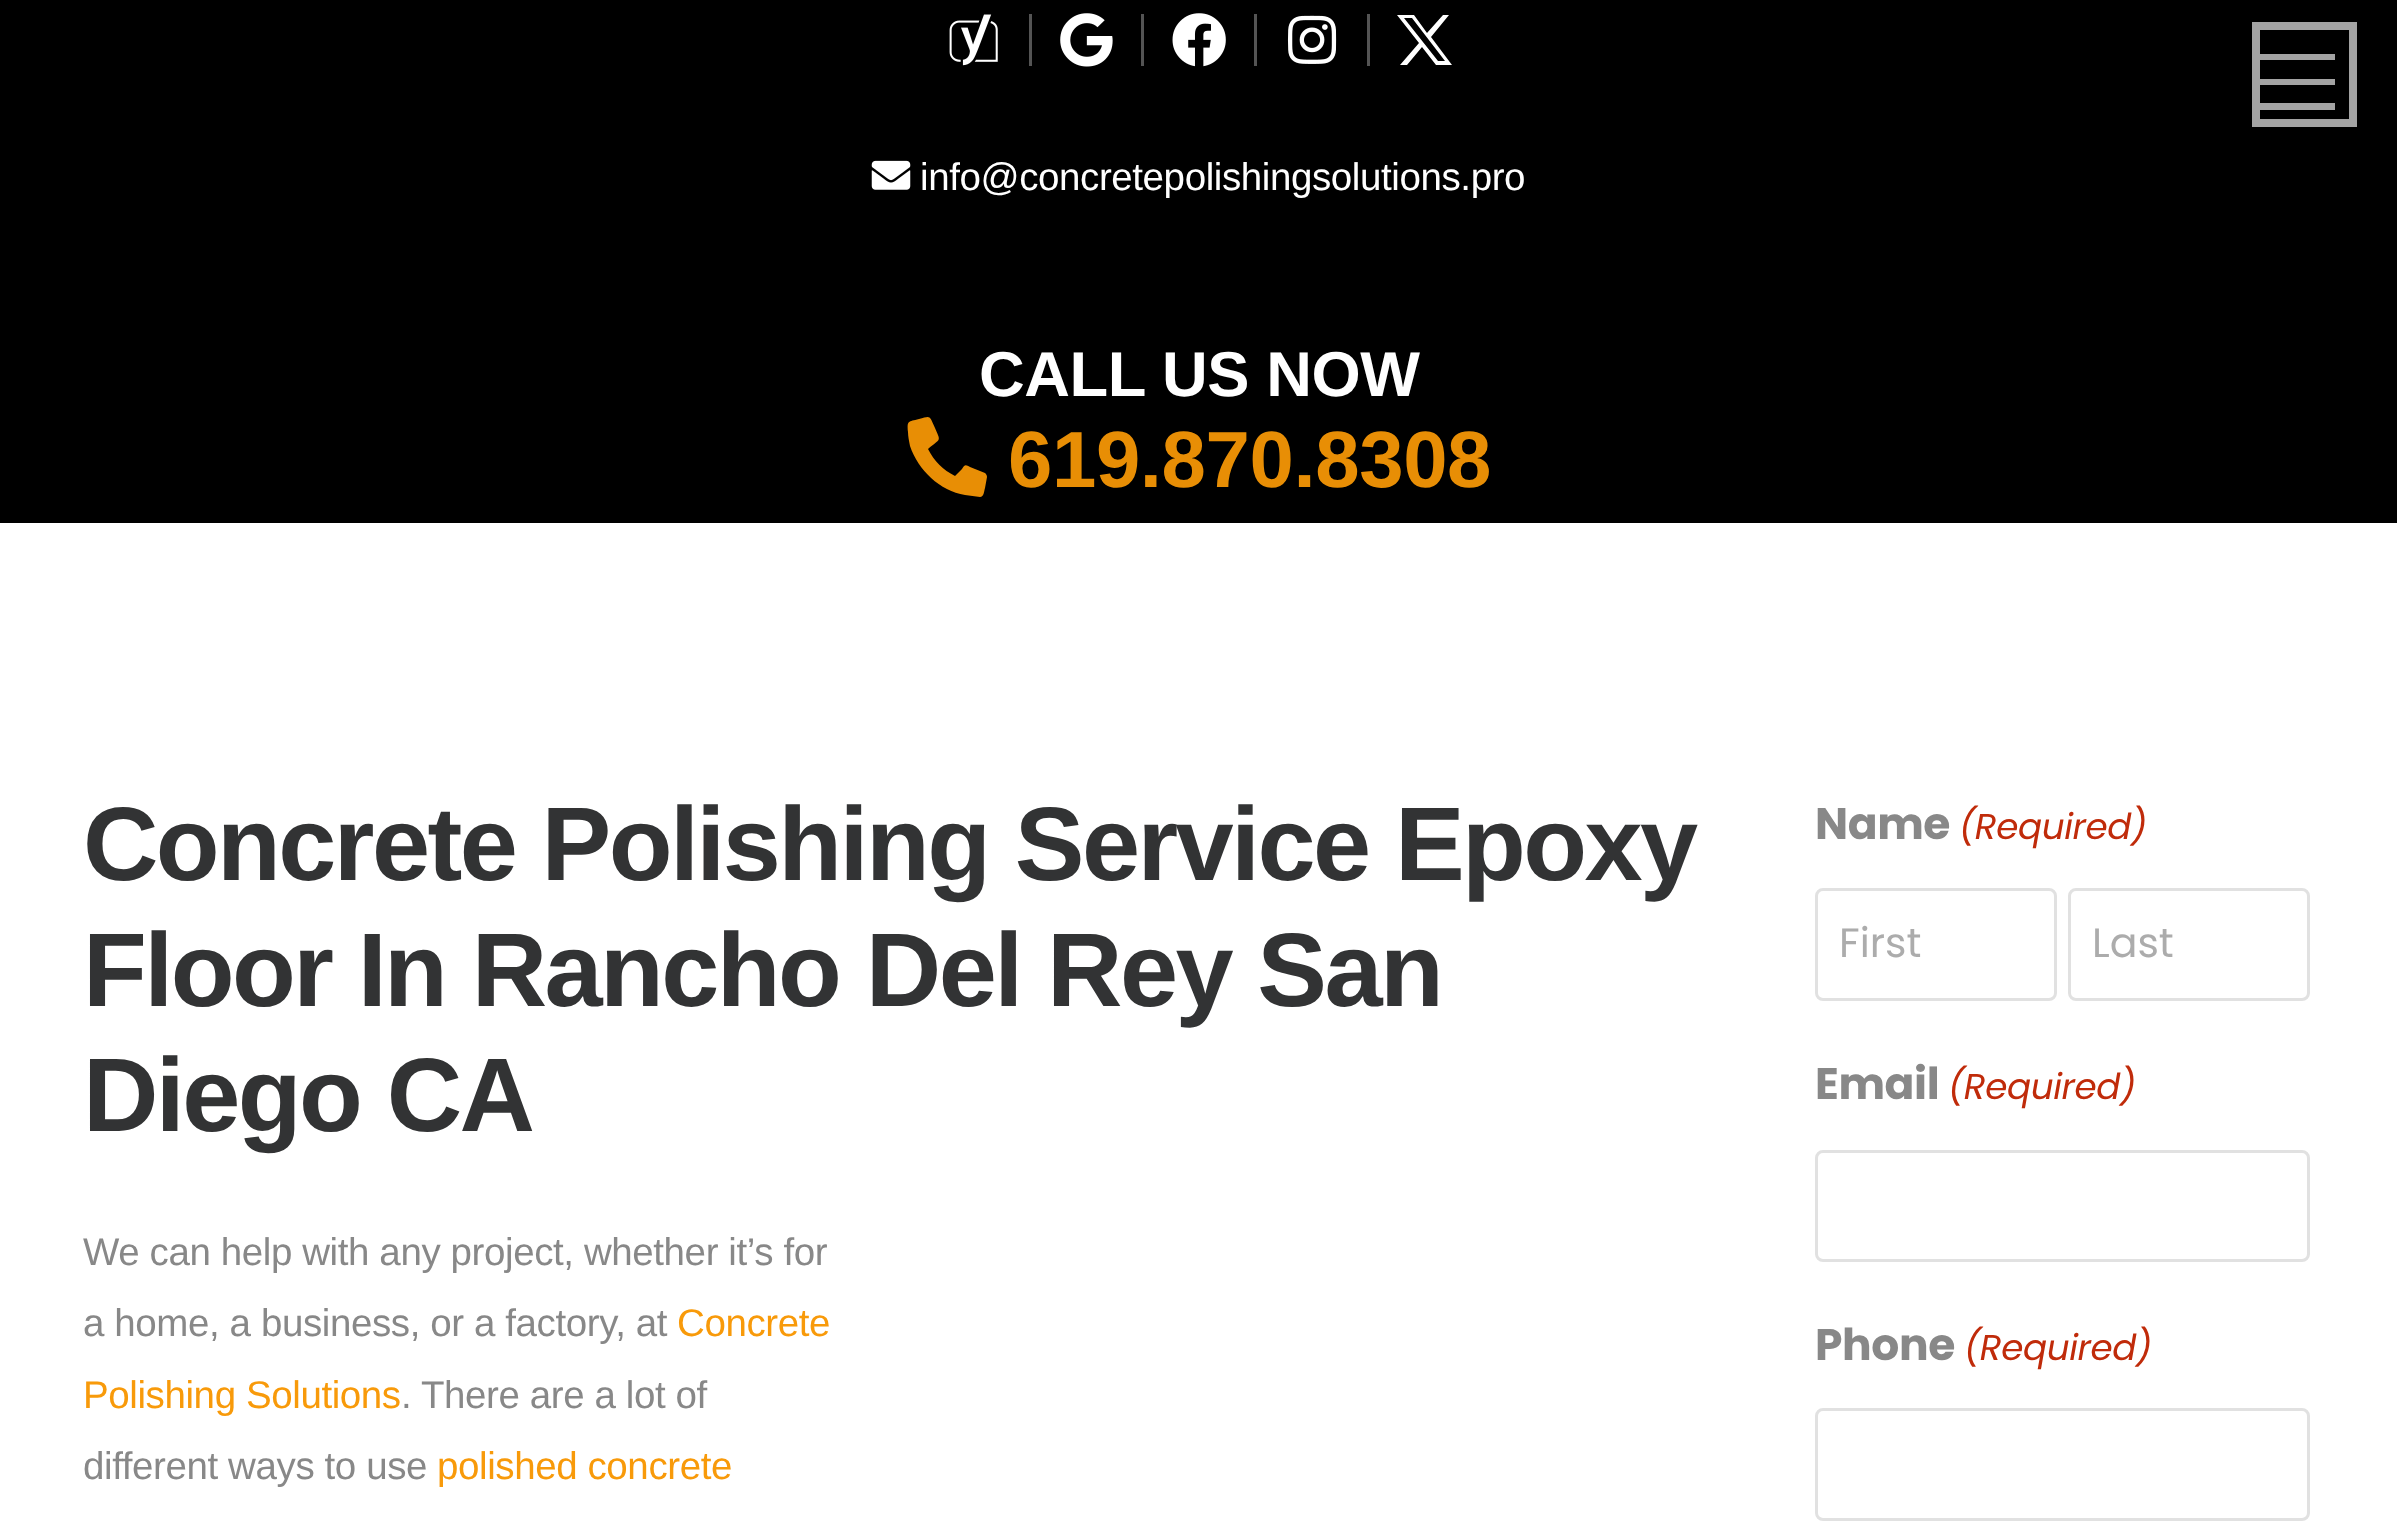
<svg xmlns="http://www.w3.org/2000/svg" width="2397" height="1526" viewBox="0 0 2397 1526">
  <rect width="100%" height="100%" fill="#fff"/>
  <path d="M0 0h2397v523H0z" fill="#000"/>
  <image x="949" y="14" width="49" height="52" href="img/1.png"/>
  <path d="M1029 14h3v52H1029z" fill="#545454"/>
  <image x="1060" y="13" width="53" height="54" href="img/2.png"/>
  <path d="M1141 14h3v52H1141z" fill="#545454"/>
  <image x="1172" y="13" width="54" height="54" href="img/3.png"/>
  <path d="M1254 14h3v52H1254z" fill="#545454"/>
  <image x="1287" y="15" width="50" height="49" href="img/4.png"/>
  <path d="M1367 14h3v52H1367z" fill="#545454"/>
  <path d="M1452 65H1436L1422 47L1407 65H1400L1419 43L1397 15H1414L1427 33L1443 15H1449L1431 37ZM1412 18H1404L1438 61H1445Z" fill="#fff"/>
  <path d="M2256 26h97v97H2256z" fill="none" stroke="#a3a3a3" stroke-width="8"/>
  <path d="M2260 54V60H2335V54ZM2260 79V85H2335V79ZM2260 103V110H2335V103Z" fill="#a3a3a3"/>
  <image x="871" y="160" width="40" height="30" href="img/5.png"/>
  <path d="M985 473C986 474 987 475 987 477L985 488C984 491 984 497 980 497L965 495C940 491 918 470 910 446C909 441 908 436 908 432C907 420 908 422 919 419C931 416 929 415 935 428C941 442 941 438 928 449C934 461 943 470 955 476L962 469C965 464 966 465 970 467Z" fill="#e88e05"/>
  <rect x="1816.5" y="889.5" width="239" height="110" rx="6.5" fill="none" stroke="#e1e1e1" stroke-width="3"/>
  <rect x="2069.5" y="889.5" width="239" height="110" rx="6.5" fill="none" stroke="#e1e1e1" stroke-width="3"/>
  <rect x="1816.5" y="1151.5" width="492" height="109" rx="6.5" fill="none" stroke="#e1e1e1" stroke-width="3"/>
  <rect x="1816.5" y="1409.5" width="492" height="110" rx="6.5" fill="none" stroke="#e1e1e1" stroke-width="3"/>
  <text x="920" y="190" font-family="Liberation Sans" font-size="38.5" letter-spacing="-0.4" fill="#fff">info@concretepolishingsolutions.pro</text>
  <text x="979" y="396" font-family="Liberation Sans" font-size="63.25" font-weight="bold" letter-spacing="-0.4" fill="#fff">CALL US NOW</text>
  <text x="1008" y="487" font-family="Liberation Sans" font-size="79.75" font-weight="bold" letter-spacing="-0.4" fill="#e88e05">619.870.8308</text>
  <g font-family="Liberation Sans" font-size="104.5" font-weight="bold" letter-spacing="-2.6" fill="#323334">
    <text x="83" y="880">Concrete Polishing Service Epoxy</text>
    <text x="83" y="1006">Floor In Rancho Del Rey San</text>
    <text x="83" y="1131">Diego CA</text>
  </g>
  <g font-family="Liberation Sans" font-size="38.5" letter-spacing="-0.4" fill="#888">
    <text x="83" y="1265">We can help with any project, whether it’s for</text>
    <text x="83" y="1336">a home, a business, or a factory, at</text>
  </g>
  <g font-family="Liberation Sans" font-size="38.5" letter-spacing="-0.4" fill="#f89a0a">
    <text x="677" y="1336">Concrete</text>
    <text x="83" y="1408">Polishing Solutions</text>
  </g>
  <g font-family="Liberation Sans" font-size="38.5" letter-spacing="-0.4" fill="#888">
    <text x="401" y="1408">. There are a lot of</text>
    <text x="83" y="1479">different ways to use</text>
  </g>
  <text x="437" y="1479" font-family="Liberation Sans" font-size="38.5" letter-spacing="-0.4" fill="#f89a0a">polished concrete</text>
  <text x="1815" y="839" font-family="Poppins" font-size="44" font-weight="bold" letter-spacing="-0.4" fill="#888">Name</text>
  <text x="1959" y="839" font-family="Poppins" font-size="35.75" font-style="italic" letter-spacing="-0.4" fill="#c02b0a">(Required)</text>
  <g font-family="Poppins" font-size="41" fill="#acacac">
    <text x="1839" y="957">First</text>
    <text x="2092" y="957">Last</text>
  </g>
  <text x="1815" y="1099" font-family="Poppins" font-size="44" font-weight="bold" letter-spacing="-0.4" fill="#888">Email</text>
  <text x="1948" y="1099" font-family="Poppins" font-size="35.75" font-style="italic" letter-spacing="-0.4" fill="#c02b0a">(Required)</text>
  <text x="1815" y="1360" font-family="Poppins" font-size="44" font-weight="bold" letter-spacing="-0.4" fill="#888">Phone</text>
  <text x="1964" y="1360" font-family="Poppins" font-size="35.75" font-style="italic" letter-spacing="-0.4" fill="#c02b0a">(Required)</text>
</svg>
